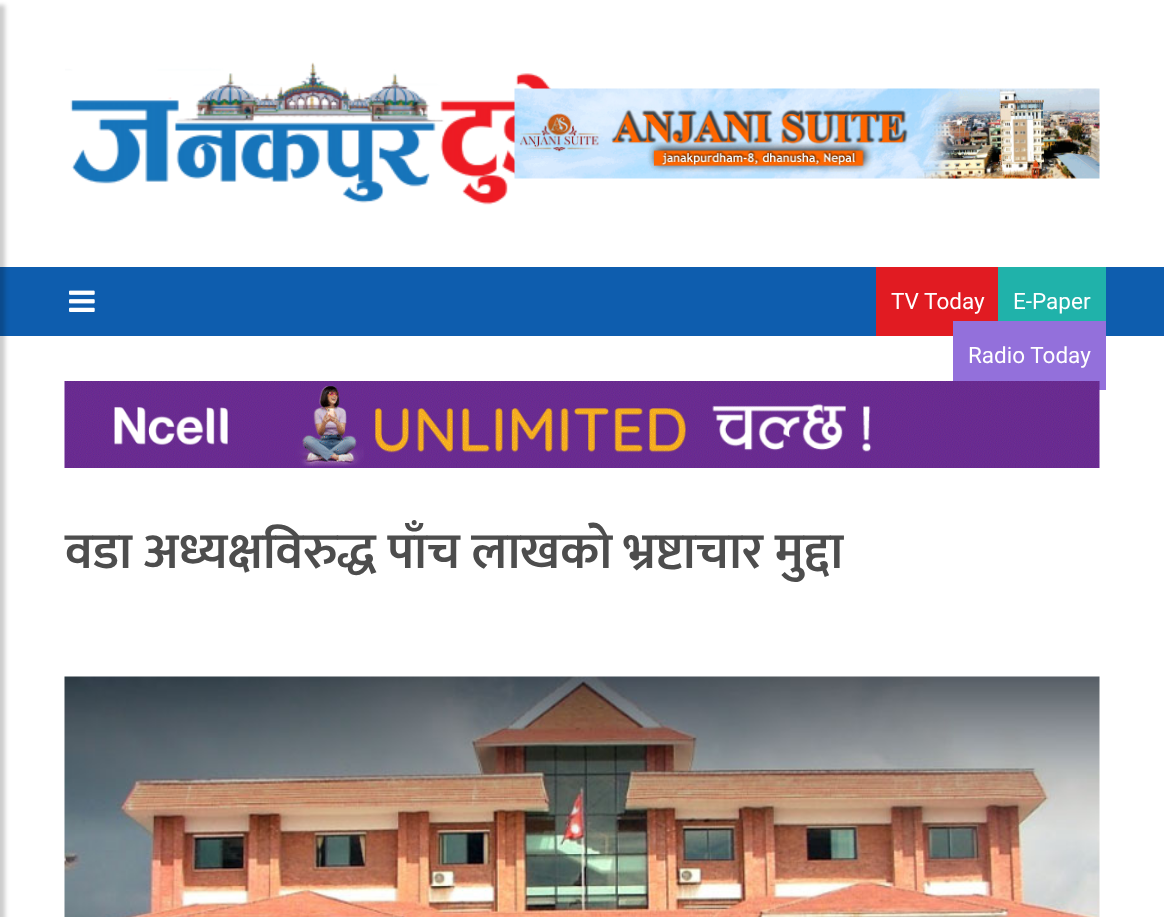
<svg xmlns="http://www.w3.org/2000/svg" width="1164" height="917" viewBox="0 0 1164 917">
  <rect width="100%" height="100%" fill="#fff"/>
  <path d="M0 267h1164v69H0z" fill="#0e5dae"/>
  <path d="M-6 5h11v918H-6z" fill="#00000033" filter="blur(2px)"/>
  <image x="65" y="62" width="487" height="143" href="img/1.png"/>
  <image x="514" y="88" width="586" height="91" href="img/2.png"/>
  <image x="69" y="290" width="26" height="22" href="img/3.png"/>
  <path d="M876 267h122v69H876z" fill="#e11b22"/>
  <path d="M998 267h108v54H998z" fill="#20b2aa"/>
  <path d="M953 321h153v69H953z" fill="#9370db"/>
  <image x="64" y="381" width="1036" height="87" href="img/4.png"/>
  <image x="64" y="676" width="1036" height="241" href="img/5.png"/>
  <g font-family="Roboto" font-size="22.5" fill="#fff">
    <text x="891" y="309">TV Today</text>
    <text x="1013" y="309">E-Paper</text>
    <text x="968" y="363">Radio Today</text>
  </g>
  <text x="65" y="568" font-family="Ek Mukta" font-size="51" font-weight="600" fill="#4d4d4d">वडा अध्यक्षविरुद्ध पाँच लाखको भ्रष्टाचार मुद्दा</text>
</svg>
